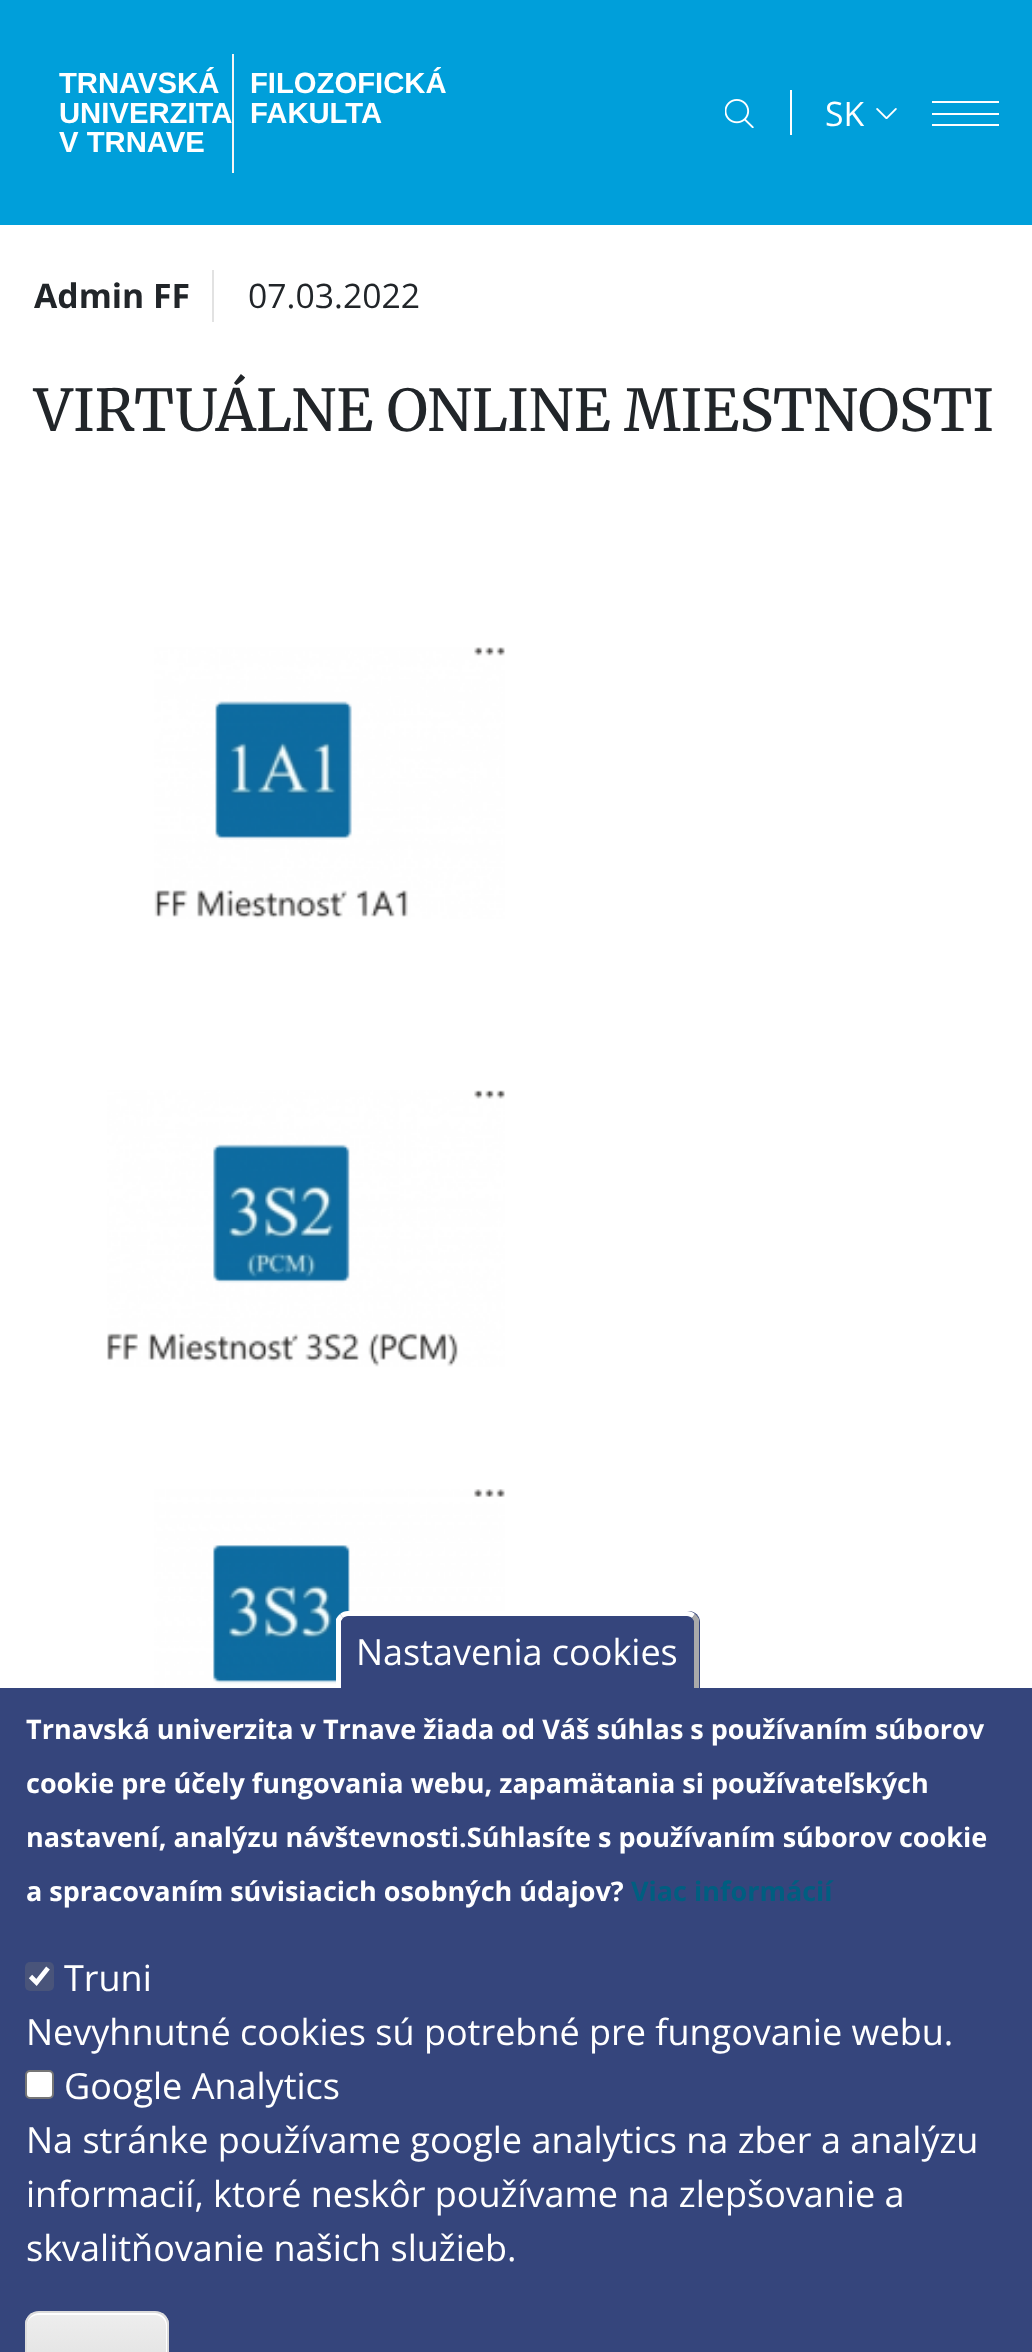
<svg xmlns="http://www.w3.org/2000/svg" width="1032" height="2352" viewBox="0 0 1032 2352">
  <defs>
    <clipPath id="clip1"><rect x="25" y="2311" width="144" height="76" rx="14"/></clipPath>
    <linearGradient id="g1" gradientUnits="userSpaceOnUse" x1="97" y1="2313" x2="97" y2="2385"><stop offset="0.05" stop-color="#ededed"/><stop offset="1" stop-color="#dfdfdf"/></linearGradient>
  </defs>
  <rect width="100%" height="100%" fill="#fff"/>
  <path d="M0 0h1032v225H0z" fill="#009fda"/>
  <path d="M232 54h2v119H232z" fill="#f5f5f5"/>
  <image x="725" y="99" width="29" height="29" href="img/1.png"/>
  <path d="M790 90h2v45H790z" fill="#fff"/>
  <image x="876" y="108" width="21" height="11" href="img/2.png"/>
  <path d="M932 101h67v2H932z" fill="#fff"/>
  <path d="M932 113h67v2H932z" fill="#fff"/>
  <path d="M932 124h67v2H932z" fill="#fff"/>
  <path d="M212 270h2v52H212z" fill="#e2e2e2"/>
  <image x="154" y="647" width="351" height="272" href="img/3.png"/>
  <image x="107" y="1090" width="398" height="277" href="img/4.png"/>
  <image x="154" y="1489" width="351" height="199" href="img/5.png"/>
  <path d="M0 1688h1032v664H0z" fill="#35457c"/>
  <path d="M349 1611H689C695 1611 700 1616 700 1622V1688H338V1622C338 1616 343 1611 349 1611Z" fill="#35457c"/>
  <path d="M348 1611C345 1611 342 1612 340 1614L343 1618C344 1617 346 1616 348 1616H687C689 1616 691 1617 692 1618L695 1614C693 1612 690 1611 687 1611Z" fill="#fff"/>
  <path d="M694 1688V1621L692 1618L695 1614C697 1616 698 1617 699 1619V1688Z" fill="#aaa"/>
  <path d="M336 1688V1619C337 1617 338 1616 340 1614L343 1618L341 1621V1688Z" fill="#fff"/>
  <rect x="25" y="1962" width="29" height="29" rx="5" fill="#49547a"/>
  <path d="M30.5 1976.5L36.5 1982.5L48 1968" fill="none" stroke="#fff" stroke-width="4.7"/>
  <rect x="26" y="2071" width="27" height="27" rx="4" fill="#fff" stroke="#767676" stroke-width="2"/>
  <g clip-path="url(#clip1)">
    <path d="M25 2313h144v39H25z" fill="url(#g1)"/>
  </g>
  <path d="M38 2315H155C161 2315 166 2320 166 2326V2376L165 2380C166 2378 167 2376 167 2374V2324C167 2318 162 2313 156 2313H38C32 2313 27 2318 27 2324V2326C27 2320 32 2315 38 2315Z" fill="#fff"/>
  <rect x="26" y="2312" width="142" height="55" rx="13" fill="none" stroke="#dcdcdc" stroke-width="2"/>
  <g font-family="Liberation Sans" font-size="29.25" font-weight="bold" fill="#fff">
    <text x="59" y="93">TRNAVSKÁ</text>
    <text x="59" y="123">UNIVERZITA</text>
    <text x="59" y="152">V TRNAVE</text>
    <text x="250" y="93">FILOZOFICKÁ</text>
    <text x="250" y="123">FAKULTA</text>
  </g>
  <text x="825" y="126" font-family="Open Sans" font-size="33.75" fill="#fff">SK</text>
  <text x="34" y="308" font-family="Open Sans" font-size="33.75" font-weight="bold" fill="#212529">Admin FF</text>
  <text x="248" y="308" font-family="Open Sans" font-size="33.75" fill="#212529">07.03.2022</text>
  <text x="34" y="431" font-family="Merriweather" font-size="57.6" fill="#212529">VIRTUÁLNE ONLINE MIESTNOSTI</text>
  <text x="356" y="1665" font-family="Open Sans" font-size="36" fill="#fff">Nastavenia cookies</text>
  <g font-family="Open Sans" font-size="27" font-weight="bold" fill="#fff">
    <text x="26" y="1739">Trnavská univerzita v Trnave žiada od Váš súhlas s používaním súborov</text>
    <text x="26" y="1793">cookie pre účely fungovania webu, zapamätania si používateľských</text>
    <text x="26" y="1847">nastavení, analýzu návštevnosti.Súhlasíte s používaním súborov cookie</text>
    <text x="26" y="1901">a spracovaním súvisiacich osobných údajov?</text>
  </g>
  <text x="631" y="1901" font-family="Open Sans" font-size="27" font-weight="bold" fill="#005e80">Viac informácií</text>
  <g font-family="Open Sans" font-size="36" fill="#fff">
    <text x="64" y="1991">Truni</text>
    <text x="26" y="2045">Nevyhnutné cookies sú potrebné pre fungovanie webu.</text>
    <text x="64" y="2099">Google Analytics</text>
    <text x="26" y="2153">Na stránke používame google analytics na zber a analýzu</text>
    <text x="26" y="2207">informacií, ktoré neskôr používame na zlepšovanie a</text>
    <text x="26" y="2261">skvalitňovanie našich služieb.</text>
  </g>
</svg>
